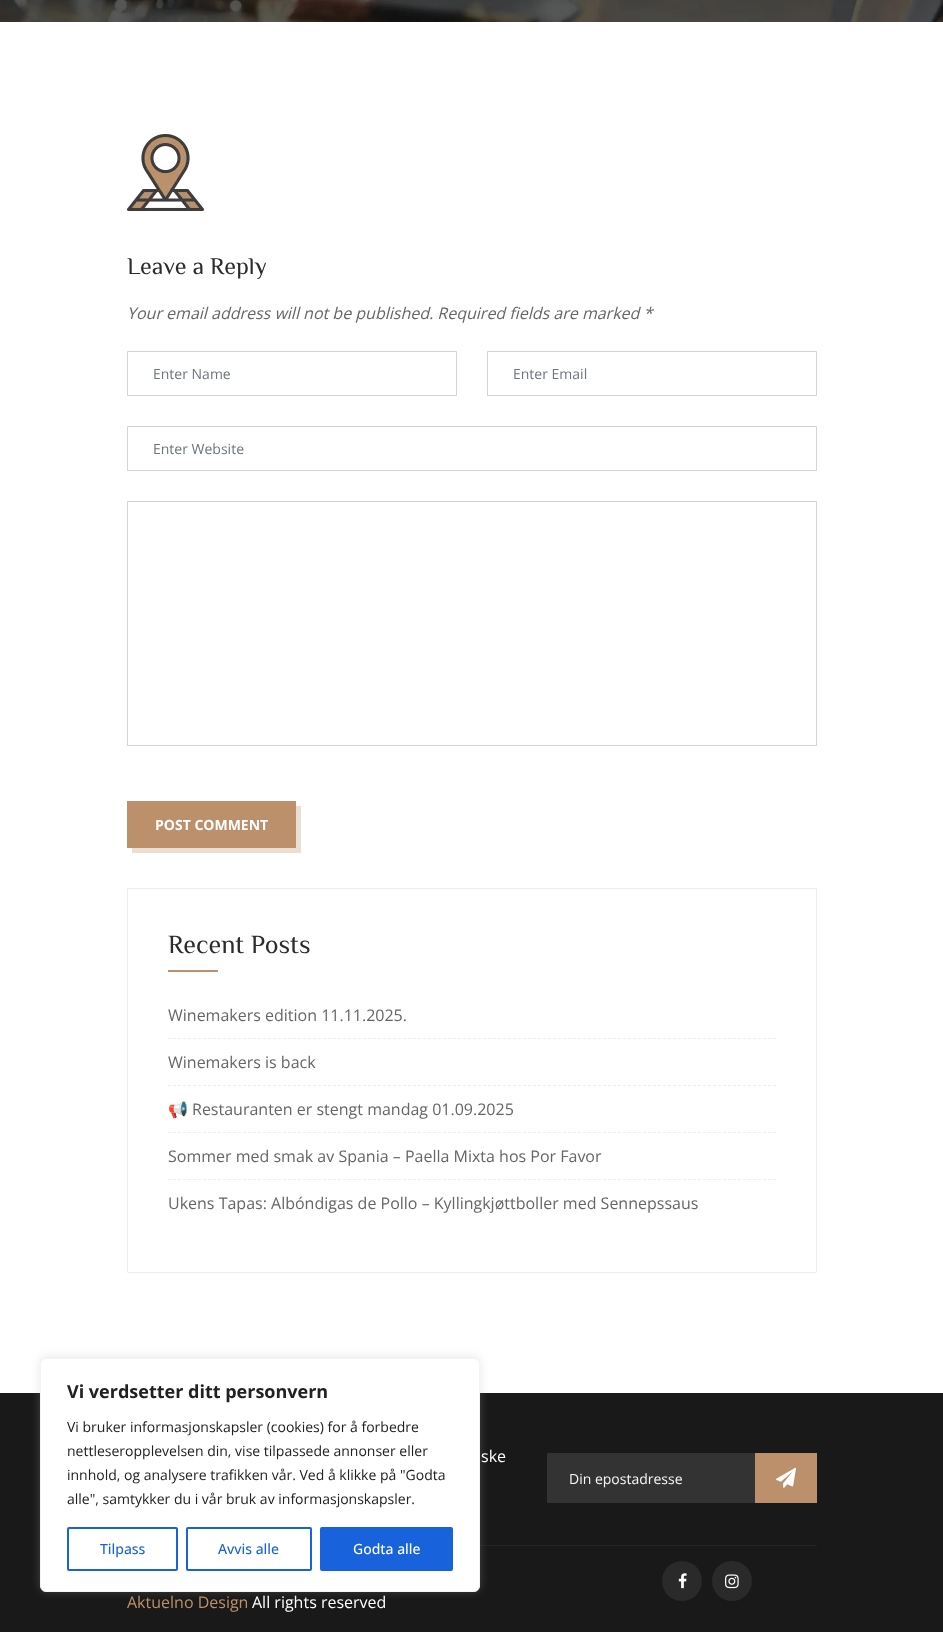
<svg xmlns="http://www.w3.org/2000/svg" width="943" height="1632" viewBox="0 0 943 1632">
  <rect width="100%" height="100%" fill="#fff"/>
  <image x="0" y="0" width="943" height="22" href="img/1.png"/>
  <image x="127" y="134" width="77" height="77" href="img/2.png"/>
  <path d="M127.5 351.5h329v44H127.5z" fill="none" stroke="#ced4da"/>
  <path d="M487.5 351.5h329v44H487.5z" fill="none" stroke="#ced4da"/>
  <path d="M127.5 426.5h689v44H127.5z" fill="none" stroke="#ced4da"/>
  <path d="M127.5 501.5h689v244H127.5z" fill="none" stroke="#ced4da"/>
  <path d="M132 848V853H301V806H296V848Z" fill="#ebded3"/>
  <path d="M127 801h169v47H127z" fill="#bc906b"/>
  <path d="M127.5 888.5h689v384H127.5z" fill="none" stroke="#eee"/>
  <path d="M168 970h50v2H168z" fill="#bc906b"/>
  <path d="M168 1038.5H776" fill="none" stroke="#eee" stroke-dasharray="3 2"/>
  <path d="M168 1085.5H776" fill="none" stroke="#eee" stroke-dasharray="3 2"/>
  <path d="M168 1132.5H776" fill="none" stroke="#eee" stroke-dasharray="3 2"/>
  <path d="M168 1179.5H776" fill="none" stroke="#eee" stroke-dasharray="3 2"/>
  <path d="M0 1393h943v239H0z" fill="#191919"/>
  <path d="M480 1545h337v1H480z" fill="#252424"/>
  <rect x="40" y="1357" width="440" height="234" rx="6" fill="#acabab4d" filter="blur(5px)"/>
  <rect x="40.5" y="1358.5" width="439" height="233" rx="5.5" fill="#fff" stroke="#f4f4f4"/>
  <rect x="68" y="1528" width="109" height="42" rx="1" fill="none" stroke="#1863dc" stroke-width="2"/>
  <rect x="187" y="1528" width="124" height="42" rx="1" fill="none" stroke="#1863dc" stroke-width="2"/>
  <rect x="321" y="1528" width="131" height="42" rx="1" fill="#1863dc" stroke="#1863dc" stroke-width="2"/>
  <path d="M547 1453h208v50H547z" fill="#333"/>
  <path d="M755 1453h62v50H755z" fill="#bc906b"/>
  <image x="776" y="1467" width="20" height="21" href="img/3.png"/>
  <circle cx="682" cy="1581" r="20" fill="#2a2a2a"/>
  <image x="678" y="1573" width="9" height="16" href="img/4.png"/>
  <circle cx="732" cy="1581" r="20" fill="#2a2a2a"/>
  <image x="725" y="1574" width="14" height="15" href="img/5.png"/>
  <text x="127" y="274" font-family="ZCOOL XiaoWei" font-size="24" fill="#2c2c2c">Leave a Reply</text>
  <text x="127" y="319" font-family="Open Sans" font-size="16" font-style="italic" fill="#666">Your email address will not be published. Required fields are marked *</text>
  <g font-family="Open Sans" font-size="14" fill="#6c757d">
    <text x="153" y="379">Enter Name</text>
    <text x="513" y="379">Enter Email</text>
    <text x="153" y="454">Enter Website</text>
  </g>
  <text x="155" y="830" font-family="Open Sans" font-size="14" font-weight="bold" fill="#fff">POST COMMENT</text>
  <text x="168" y="953" font-family="ZCOOL XiaoWei" font-size="26" fill="#2c2c2c">Recent Posts</text>
  <g font-family="Open Sans" font-size="16" fill="#666">
    <text x="168" y="1021">Winemakers edition 11.11.2025.</text>
    <text x="168" y="1068">Winemakers is back</text>
  </g>
  <text x="168" y="1115" font-family="Noto Color Emoji" font-size="16" fill="#666">📢</text>
  <g font-family="Open Sans" font-size="16" fill="#666">
    <text x="192" y="1115">Restauranten er stengt mandag 01.09.2025</text>
    <text x="168" y="1162">Sommer med smak av Spania – Paella Mixta hos Por Favor</text>
    <text x="168" y="1209">Ukens Tapas: Albóndigas de Pollo – Kyllingkjøttboller med Sennepssaus</text>
  </g>
  <text x="67" y="1398" font-family="Open Sans" font-size="18" font-weight="bold" fill="#212121">Vi verdsetter ditt personvern</text>
  <g font-family="Open Sans" font-size="14" fill="#212121">
    <text x="67" y="1432">Vi bruker informasjonskapsler (cookies) for å forbedre</text>
    <text x="67" y="1456">nettleseropplevelsen din, vise tilpassede annonser eller</text>
    <text x="67" y="1480">innhold, og analysere trafikken vår. Ved å klikke på "Godta</text>
    <text x="67" y="1504">alle", samtykker du i vår bruk av informasjonskapsler.</text>
  </g>
  <g font-family="Open Sans" font-size="14" font-weight="500" fill="#1863dc">
    <text x="100" y="1554">Tilpass</text>
    <text x="218" y="1554">Avvis alle</text>
  </g>
  <text x="353" y="1554" font-family="Open Sans" font-size="14" font-weight="500" fill="#fff">Godta alle</text>
  <text x="481" y="1462" font-family="Open Sans" font-size="16" fill="#fff">ske</text>
  <text x="569" y="1484" font-family="Open Sans" font-size="14" fill="#f7f7f7">Din epostadresse</text>
  <text x="127" y="1608" font-family="Open Sans" font-size="16" fill="#bc906b">Aktuelno Design</text>
  <text x="252" y="1608" font-family="Open Sans" font-size="16" fill="#fff">All rights reserved</text>
</svg>
